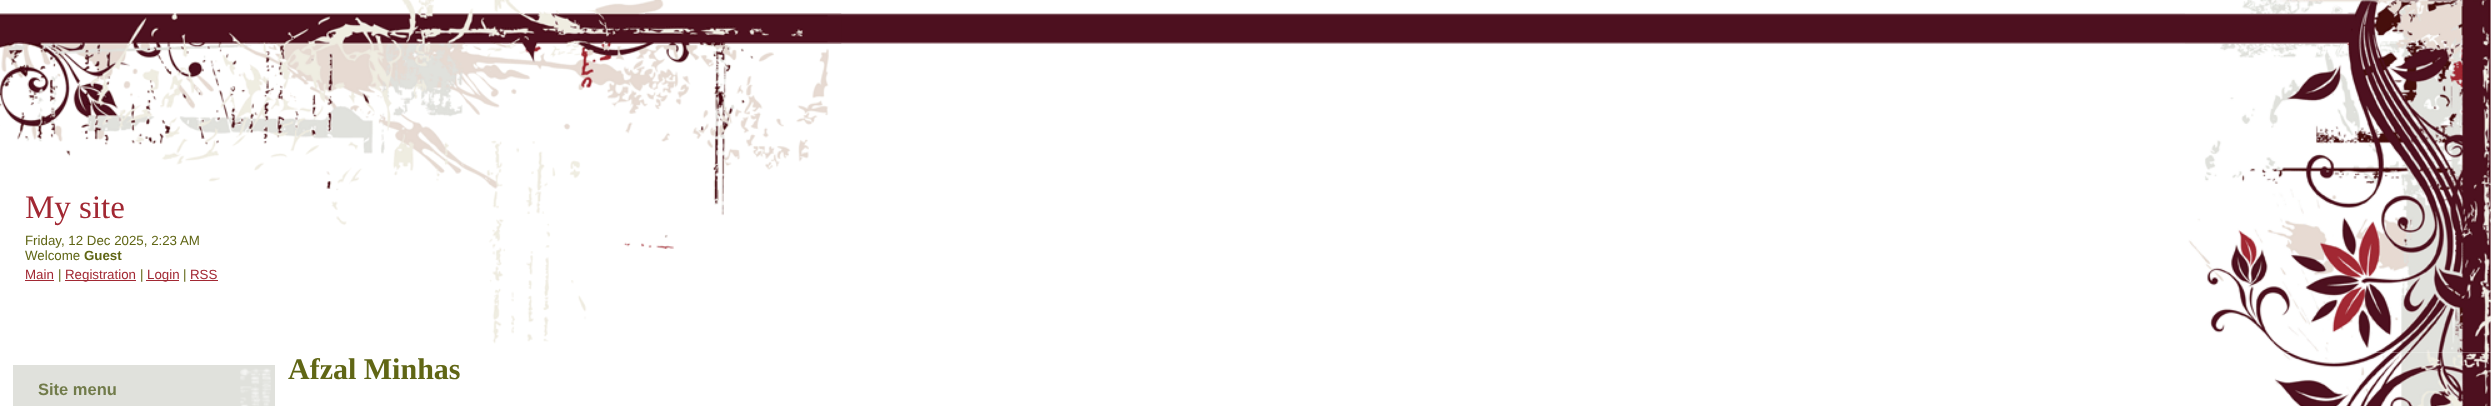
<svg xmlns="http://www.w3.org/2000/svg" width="2491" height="406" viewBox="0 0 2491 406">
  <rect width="100%" height="100%" fill="#fff"/>
  <image x="0" y="13" width="2185" height="31" href="img/1.png"/>
  <image x="0" y="0" width="842" height="344" href="img/2.png"/>
  <path d="M25 280h29v1H25z" fill="#a22833"/>
  <path d="M65 280h71v1H65z" fill="#a22833"/>
  <path d="M146 280h33v1H146z" fill="#a22833"/>
  <path d="M190 280h28v1H190z" fill="#a22833"/>
  <image x="2274" y="352" width="217" height="54" href="img/4.png"/>
  <image x="2185" y="0" width="306" height="353" href="img/3.png"/>
  <path d="M13 365h262v41H13z" fill="#e0e1dc"/>
  <image x="240" y="368" width="31" height="38" href="img/5.png"/>
  <text x="25" y="218" font-family="Liberation Serif" font-size="33" fill="#a22833">My site</text>
  <g font-family="Liberation Sans" font-size="13.3" fill="#606615">
    <text x="25" y="245">Friday, 12 Dec 2025, 2:23 AM</text>
    <text x="25" y="260">Welcome</text>
  </g>
  <text x="84" y="260" font-family="Liberation Sans" font-size="13.3" font-weight="bold" fill="#606615">Guest</text>
  <text x="25" y="279" font-family="Liberation Sans" font-size="13.3" fill="#a22833">Main</text>
  <text x="58" y="279" font-family="Liberation Sans" font-size="13.3" fill="#606615">|</text>
  <text x="65" y="279" font-family="Liberation Sans" font-size="13.3" fill="#a22833">Registration</text>
  <text x="140" y="279" font-family="Liberation Sans" font-size="13.3" fill="#606615">|</text>
  <text x="147" y="279" font-family="Liberation Sans" font-size="13.3" fill="#a22833">Login</text>
  <text x="183" y="279" font-family="Liberation Sans" font-size="13.3" fill="#606615">|</text>
  <text x="190" y="279" font-family="Liberation Sans" font-size="13.3" fill="#a22833">RSS</text>
  <text x="288" y="379" font-family="Liberation Serif" font-size="30" font-weight="bold" fill="#606615">Afzal Minhas</text>
  <text x="38" y="395" font-family="Liberation Sans" font-size="16.5" font-weight="bold" fill="#717b4a">Site menu</text>
</svg>
